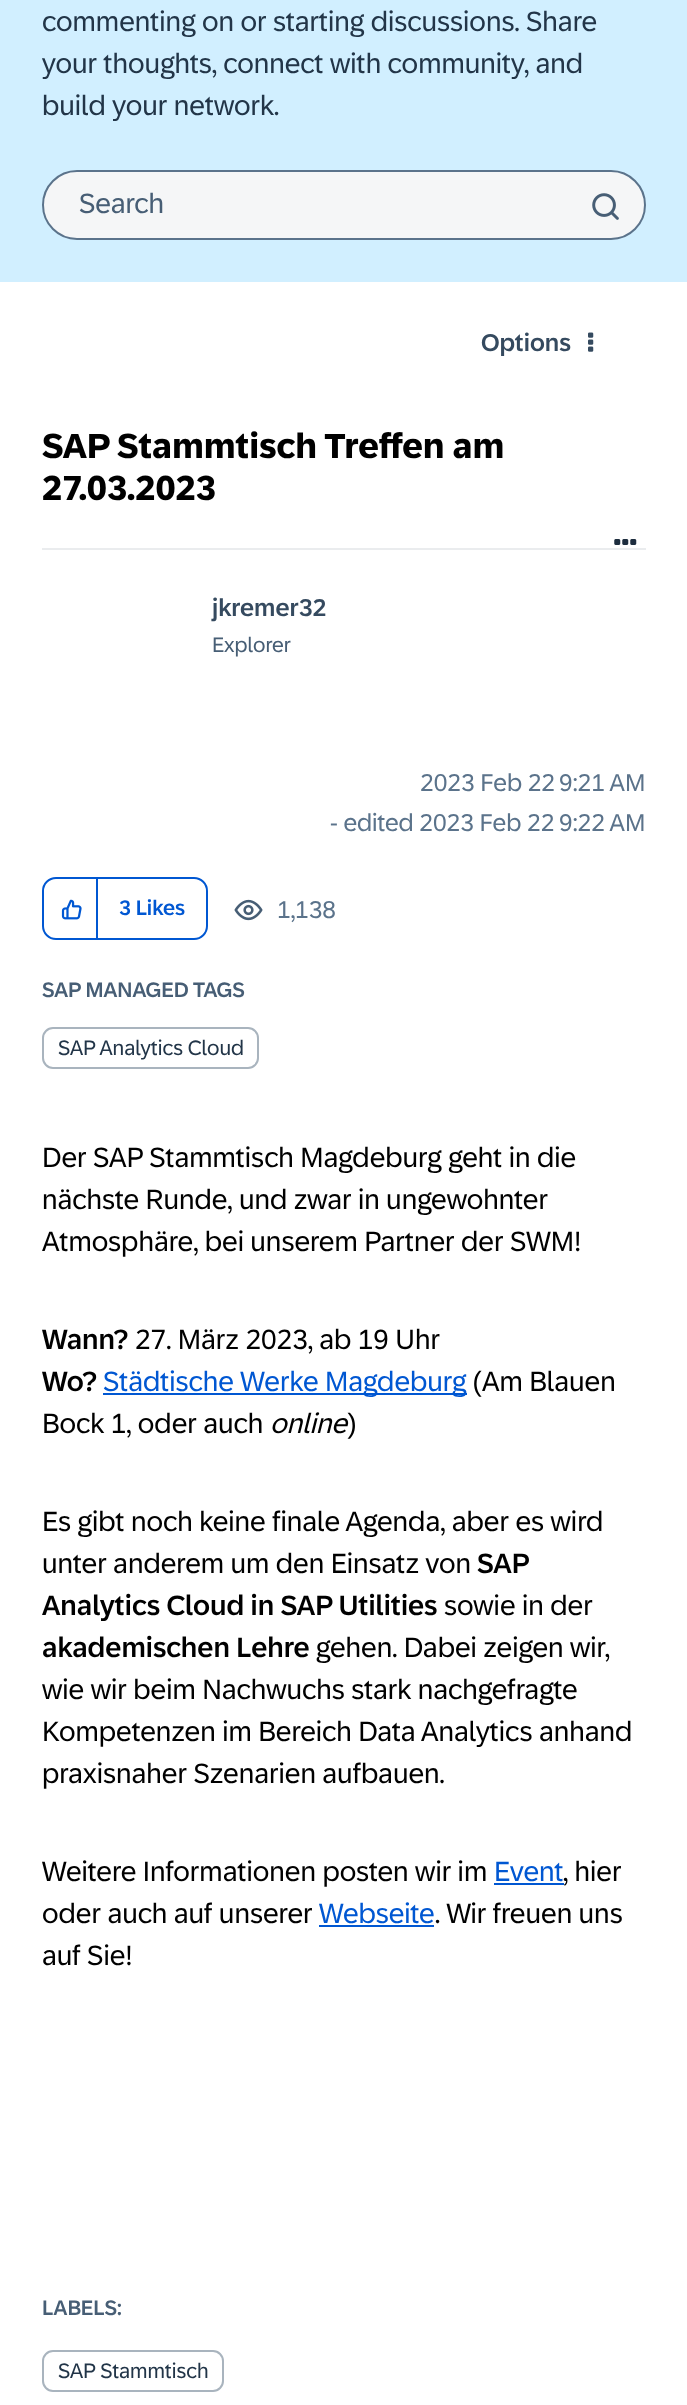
<svg xmlns="http://www.w3.org/2000/svg" width="687" height="2405" viewBox="0 0 687 2405">
  <rect width="100%" height="100%" fill="#fff"/>
  <path d="M0 0h687v282H0z" fill="#d1efff"/>
  <rect x="43" y="171" width="602" height="68" rx="34" fill="#f5f6f7" stroke="#5b738b" stroke-width="2"/>
  <image x="592" y="193" width="27" height="27" href="img/1.png"/>
  <image x="588" y="332" width="6" height="20" href="img/2.png"/>
  <path d="M42 548h604v2H42z" fill="#eaecee"/>
  <image x="614" y="539" width="23" height="6" href="img/3.png"/>
  <rect x="43" y="878" width="164" height="61" rx="13" fill="none" stroke="#0057d2" stroke-width="2"/>
  <path d="M96 879h2v61H96z" fill="#0057d2"/>
  <image x="61" y="899" width="21" height="21" href="img/4.png"/>
  <image x="234" y="899" width="29" height="22" href="img/5.png"/>
  <rect x="43" y="1028" width="215" height="40" rx="10" fill="none" stroke="#a9b4be" stroke-width="2"/>
  <path d="M103 1393h364v2H103z" fill="#0057d2"/>
  <path d="M494 1883h70v2H494z" fill="#0057d2"/>
  <path d="M319 1925h115v2H319z" fill="#0057d2"/>
  <rect x="43" y="2351" width="180" height="40" rx="10" fill="none" stroke="#a9b4be" stroke-width="2"/>
  <g font-family="'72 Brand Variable'" font-size="28" fill="#223548">
    <text x="42" y="31">commenting on or starting discussions. Share</text>
    <text x="42" y="73">your thoughts, connect with community, and</text>
    <text x="42" y="115">build your network.</text>
  </g>
  <text x="79" y="213" font-family="'72 Brand Variable'" font-size="28" fill="#475e75">Search</text>
  <text x="481" y="351" font-family="'72 Brand Variable'" font-size="24.5" font-weight="500" fill="#354a5f">Options</text>
  <g font-family="'72 Brand Variable'" font-size="35" font-weight="bold" fill="#000">
    <text x="42" y="458">SAP Stammtisch Treffen am</text>
    <text x="42" y="500">27.03.2023</text>
  </g>
  <text x="212" y="616" font-family="'72 Brand Variable'" font-size="24.5" font-weight="500" fill="#354a5f">jkremer32</text>
  <text x="212" y="652" font-family="'72 Brand Variable'" font-size="21" fill="#475e75">Explorer</text>
  <g font-family="'72 Brand Variable'" font-size="24.5" fill="#5b738b">
    <text x="420" y="791">2023 Feb 22</text>
    <text x="559" y="791">9:21 AM</text>
    <text x="330" y="831">- edited 2023 Feb 22</text>
    <text x="559" y="831">9:22 AM</text>
  </g>
  <text x="119" y="915" font-family="'72 Brand Variable'" font-size="21" font-weight="500" fill="#0057d2">3 Likes</text>
  <text x="277" y="918" font-family="'72 Brand Variable'" font-size="24.5" fill="#5b738b">1,138</text>
  <text x="42" y="997" font-family="'72 Brand Variable'" font-size="21" font-weight="500" fill="#475e75">SAP MANAGED TAGS</text>
  <text x="58" y="1055" font-family="'72 Brand Variable'" font-size="21" fill="#223548">SAP Analytics Cloud</text>
  <g font-family="'72 Brand Variable'" font-size="28" fill="#000">
    <text x="42" y="1167">Der SAP Stammtisch Magdeburg geht in die</text>
    <text x="42" y="1209">nächste Runde, und zwar in ungewohnter</text>
    <text x="42" y="1251">Atmosphäre, bei unserem Partner der SWM!</text>
  </g>
  <text x="42" y="1349" font-family="'72 Brand Variable'" font-size="28" font-weight="500" fill="#000">Wann?</text>
  <text x="135" y="1349" font-family="'72 Brand Variable'" font-size="28" fill="#000">27. März 2023, ab 19 Uhr</text>
  <text x="42" y="1391" font-family="'72 Brand Variable'" font-size="28" font-weight="500" fill="#000">Wo?</text>
  <text x="103" y="1391" font-family="'72 Brand Variable'" font-size="28" fill="#0057d2">Städtische Werke Magdeburg</text>
  <g font-family="'72 Brand Variable'" font-size="28" fill="#000">
    <text x="473" y="1391">(Am Blauen</text>
    <text x="42" y="1433">Bock 1, oder auch</text>
  </g>
  <text x="270" y="1433" font-family="'72 Brand Variable'" font-size="28" font-style="italic" fill="#000">online</text>
  <g font-family="'72 Brand Variable'" font-size="28" fill="#000">
    <text x="347" y="1433">)</text>
    <text x="42" y="1531">Es gibt noch keine finale Agenda, aber es wird</text>
    <text x="42" y="1573">unter anderem um den Einsatz von</text>
  </g>
  <g font-family="'72 Brand Variable'" font-size="28" font-weight="500" fill="#000">
    <text x="477" y="1573">SAP</text>
    <text x="42" y="1615">Analytics Cloud in SAP Utilities</text>
  </g>
  <text x="444" y="1615" font-family="'72 Brand Variable'" font-size="28" fill="#000">sowie in der</text>
  <text x="42" y="1657" font-family="'72 Brand Variable'" font-size="28" font-weight="500" fill="#000">akademischen Lehre</text>
  <g font-family="'72 Brand Variable'" font-size="28" fill="#000">
    <text x="316" y="1657">gehen. Dabei zeigen wir,</text>
    <text x="42" y="1699">wie wir beim Nachwuchs stark nachgefragte</text>
    <text x="42" y="1741">Kompetenzen im Bereich Data Analytics anhand</text>
    <text x="42" y="1783">praxisnaher Szenarien aufbauen.</text>
    <text x="42" y="1881">Weitere Informationen posten wir im</text>
  </g>
  <text x="494" y="1881" font-family="'72 Brand Variable'" font-size="28" fill="#0057d2">Event</text>
  <g font-family="'72 Brand Variable'" font-size="28" fill="#000">
    <text x="563" y="1881">, hier</text>
    <text x="42" y="1923">oder auch auf unserer</text>
  </g>
  <text x="319" y="1923" font-family="'72 Brand Variable'" font-size="28" fill="#0057d2">Webseite</text>
  <g font-family="'72 Brand Variable'" font-size="28" fill="#000">
    <text x="435" y="1923">. Wir freuen uns</text>
    <text x="42" y="1965">auf Sie!</text>
  </g>
  <text x="42" y="2315" font-family="'72 Brand Variable'" font-size="21" font-weight="500" fill="#475e75">LABELS:</text>
  <text x="58" y="2378" font-family="'72 Brand Variable'" font-size="21" fill="#223548">SAP Stammtisch</text>
</svg>
